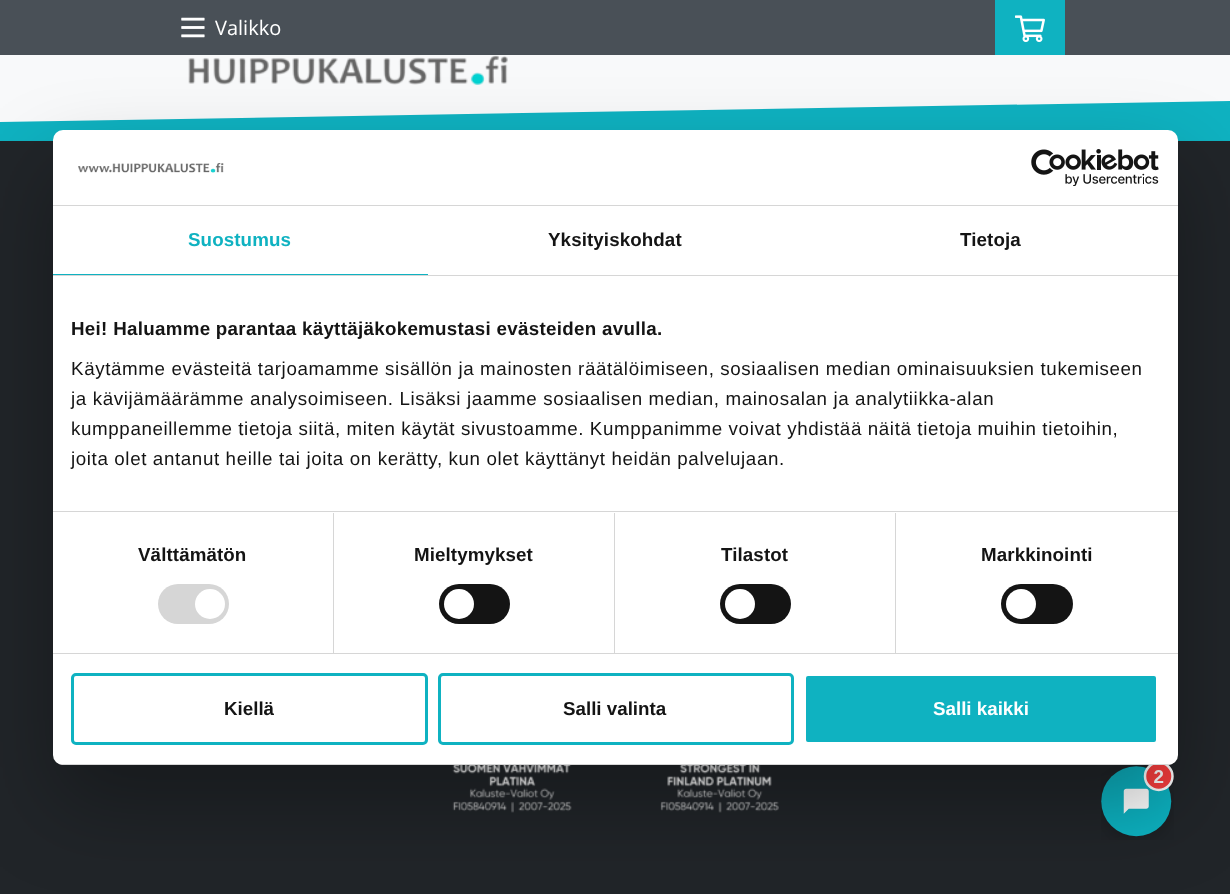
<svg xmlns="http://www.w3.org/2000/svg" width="1230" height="894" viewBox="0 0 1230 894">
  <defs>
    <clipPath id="clip1"><rect x="53" y="130" width="1125" height="635" rx="10"/></clipPath>
  </defs>
  <rect width="100%" height="100%" fill="#f8f9fa"/>
  <path d="M0 0h1230v55H0z" fill="#495057"/>
  <image x="181" y="17" width="24" height="21" href="img/1.png"/>
  <path d="M995 0h70v55H995z" fill="#0fb2c1"/>
  <image x="1015" y="15" width="30" height="28" href="img/2.png"/>
  <image x="188" y="55" width="320" height="30" href="img/3.png"/>
  <path d="M0 122L1230 101V141L0 162Z" fill="#0fb2c1"/>
  <path d="M0 141h1230v753H0z" fill="#212529"/>
  <image x="452" y="765" width="120" height="48" href="img/4.png"/>
  <image x="660" y="765" width="119" height="48" href="img/5.png"/>
  <image x="1101" y="764" width="73" height="76" href="img/8.png"/>
  <rect x="53" y="170" width="1125" height="635" rx="10" fill="#0000004d" filter="blur(42.5px)"/>
  <rect x="53" y="130" width="1125" height="635" rx="10" fill="#fff"/>
  <path d="M53 205h1125v1H53z" fill="#d6d6d6"/>
  <image x="78" y="163" width="146" height="10" href="img/6.png"/>
  <image x="1031" y="149" width="128" height="37" href="img/7.png"/>
  <path d="M53 275h1125v1H53z" fill="#d6d6d6"/>
  <path d="M53 274h375v1H53z" fill="#0fb2c1"/>
  <path d="M53 511h1125v1H53z" fill="#d6d6d6"/>
  <path d="M53 653h1125v1H53z" fill="#d6d6d6"/>
  <path d="M333 513h1v140H333z" fill="#d6d6d6"/>
  <rect x="158" y="584" width="71" height="40" rx="20" fill="#d6d6d6"/>
  <circle cx="210" cy="604" r="15" fill="#fff"/>
  <path d="M614 513h1v140H614z" fill="#d6d6d6"/>
  <rect x="439" y="584" width="71" height="40" rx="20" fill="#141414"/>
  <circle cx="459" cy="604" r="15" fill="#fff"/>
  <path d="M895 513h1v140H895z" fill="#d6d6d6"/>
  <rect x="720" y="584" width="71" height="40" rx="20" fill="#141414"/>
  <circle cx="740" cy="604" r="15" fill="#fff"/>
  <rect x="1001" y="584" width="72" height="40" rx="20" fill="#141414"/>
  <circle cx="1021" cy="604" r="15" fill="#fff"/>
  <g clip-path="url(#clip1)">
    <path d="M53 764h1125v1H53z" fill="#d6d6d6"/>
  </g>
  <rect x="72.5" y="674.5" width="354" height="69" rx="3.5" fill="none" stroke="#0fb2c1" stroke-width="3"/>
  <rect x="439.5" y="674.5" width="353" height="69" rx="3.5" fill="none" stroke="#0fb2c1" stroke-width="3"/>
  <rect x="804.5" y="674.5" width="353" height="69" rx="3.5" fill="#0fb2c1" stroke="#fff" stroke-width="3"/>
  <text x="215" y="35" font-family="Open Sans" font-size="20" fill="#fff">Valikko</text>
  <text x="188" y="246" font-family="Liberation Sans" font-size="18.75" font-weight="bold" letter-spacing="0.1" fill="#0fb2c1">Suostumus</text>
  <g font-family="Liberation Sans" font-size="18.75" font-weight="bold" letter-spacing="0.1" fill="#141414">
    <text x="548" y="246">Yksityiskohdat</text>
    <text x="960" y="246">Tietoja</text>
  </g>
  <text x="71" y="335" font-family="Liberation Sans" font-size="18.75" font-weight="bold" letter-spacing="0.3" fill="#141414">Hei! Haluamme parantaa käyttäjäkokemustasi evästeiden avulla.</text>
  <g font-family="Liberation Sans" font-size="18.75" letter-spacing="0.62" fill="#141414">
    <text x="71" y="375">Käytämme evästeitä tarjoamamme sisällön ja mainosten räätälöimiseen, sosiaalisen median ominaisuuksien tukemiseen</text>
    <text x="71" y="405">ja kävijämäärämme analysoimiseen. Lisäksi jaamme sosiaalisen median, mainosalan ja analytiikka-alan</text>
    <text x="71" y="435">kumppaneillemme tietoja siitä, miten käytät sivustoamme. Kumppanimme voivat yhdistää näitä tietoja muihin tietoihin,</text>
    <text x="71" y="465">joita olet antanut heille tai joita on kerätty, kun olet käyttänyt heidän palvelujaan.</text>
  </g>
  <g font-family="Liberation Sans" font-size="18.75" font-weight="bold" letter-spacing="0.1" fill="#141414">
    <text x="138" y="561">Välttämätön</text>
    <text x="414" y="561">Mieltymykset</text>
    <text x="721" y="561">Tilastot</text>
    <text x="981" y="561">Markkinointi</text>
  </g>
  <g font-family="Liberation Sans" font-size="18.75" font-weight="bold" fill="#141414">
    <text x="224" y="715">Kiellä</text>
    <text x="563" y="715">Salli valinta</text>
  </g>
  <text x="933" y="715" font-family="Liberation Sans" font-size="18.75" font-weight="bold" fill="#fff">Salli kaikki</text>
</svg>
